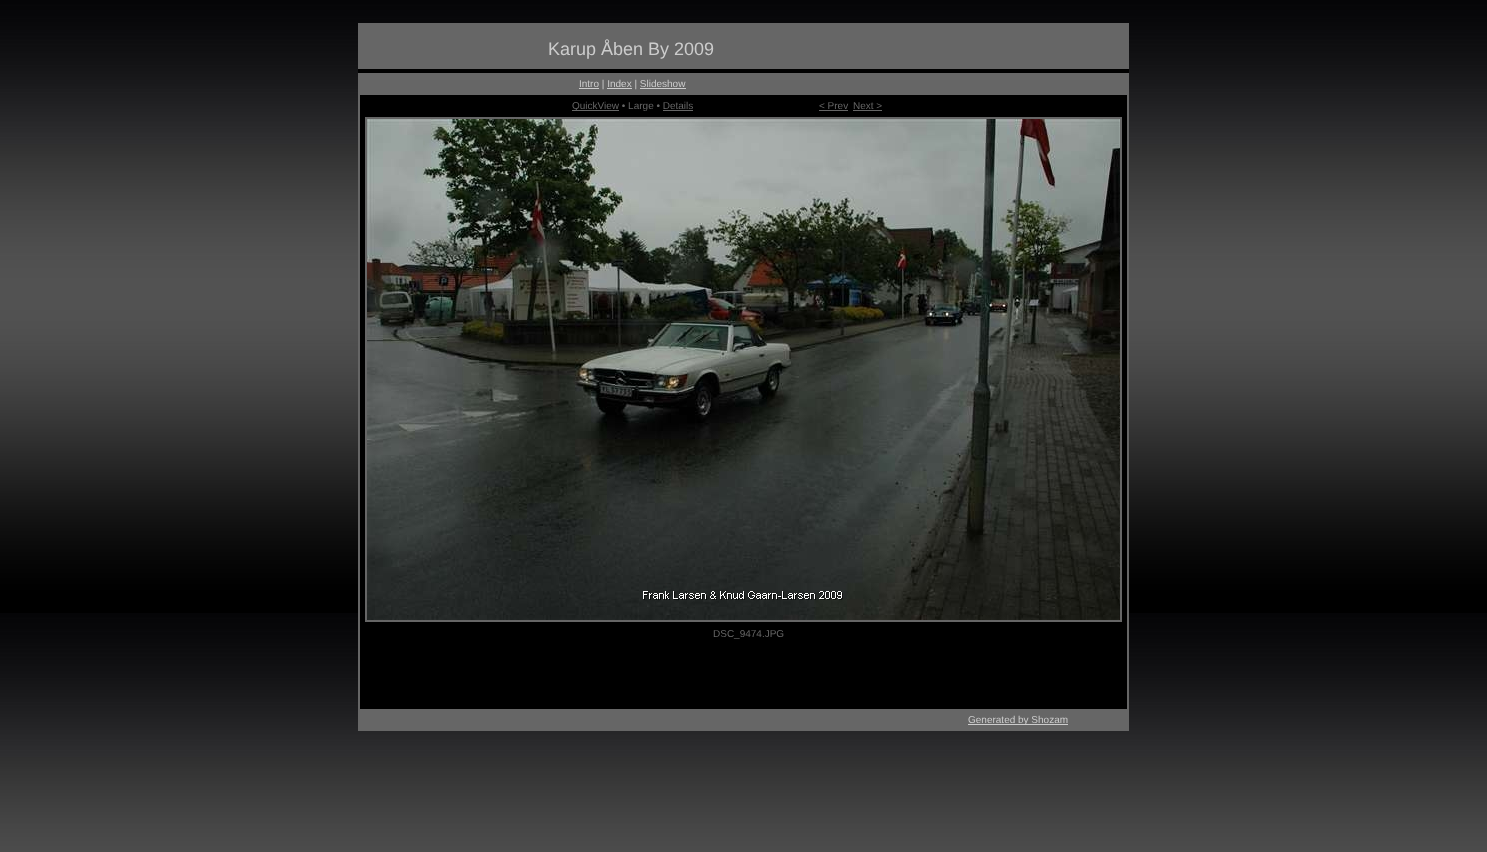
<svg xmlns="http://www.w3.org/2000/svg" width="1487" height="852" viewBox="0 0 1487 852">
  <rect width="100%" height="100%" fill="#fff"/>
  <image x="0" y="0" width="1487" height="852" href="img/1.png"/>
  <path d="M358 23h771v46H358z" fill="#666"/>
  <path d="M358 69h771v4H358z" fill="#000"/>
  <path d="M360 95h767v614H360z" fill="#000"/>
  <path d="M1127 73h2v658H1127z" fill="#666"/>
  <path d="M358 73h2v658H358z" fill="#666"/>
  <path d="M360 73h767v22H360z" fill="#666"/>
  <path d="M579 88h20v1H579z" fill="#ccc"/>
  <path d="M607 88h25v1H607z" fill="#ccc"/>
  <path d="M640 88h46v1H640z" fill="#ccc"/>
  <path d="M572 110h47v1H572z" fill="#666"/>
  <path d="M663 110h30v1H663z" fill="#666"/>
  <path d="M819 110h29v1H819z" fill="#666"/>
  <path d="M853 110h29v1H853z" fill="#666"/>
  <path d="M366 118h755v503H366z" fill="none" stroke="#666" stroke-width="2"/>
  <image x="367" y="119" width="753" height="501" href="img/2.png"/>
  <path d="M360 709h767v22H360z" fill="#666"/>
  <path d="M968 724h100v1H968z" fill="#ccc"/>
  <text x="548" y="55" font-family="Liberation Sans" font-size="18" fill="#ccc">Karup Åben By 2009</text>
  <text x="579" y="87" font-family="Liberation Sans" font-size="10" fill="#ccc">Intro | Index | Slideshow</text>
  <g font-family="Liberation Sans" font-size="10" fill="#666">
    <text x="572" y="109">QuickView • Large • Details</text>
    <text x="819" y="109">&lt; Prev</text>
    <text x="853" y="109">Next &gt;</text>
    <text x="713" y="637">DSC_9474.JPG</text>
  </g>
  <text x="968" y="723" font-family="Liberation Sans" font-size="10" fill="#ccc">Generated by Shozam</text>
</svg>
